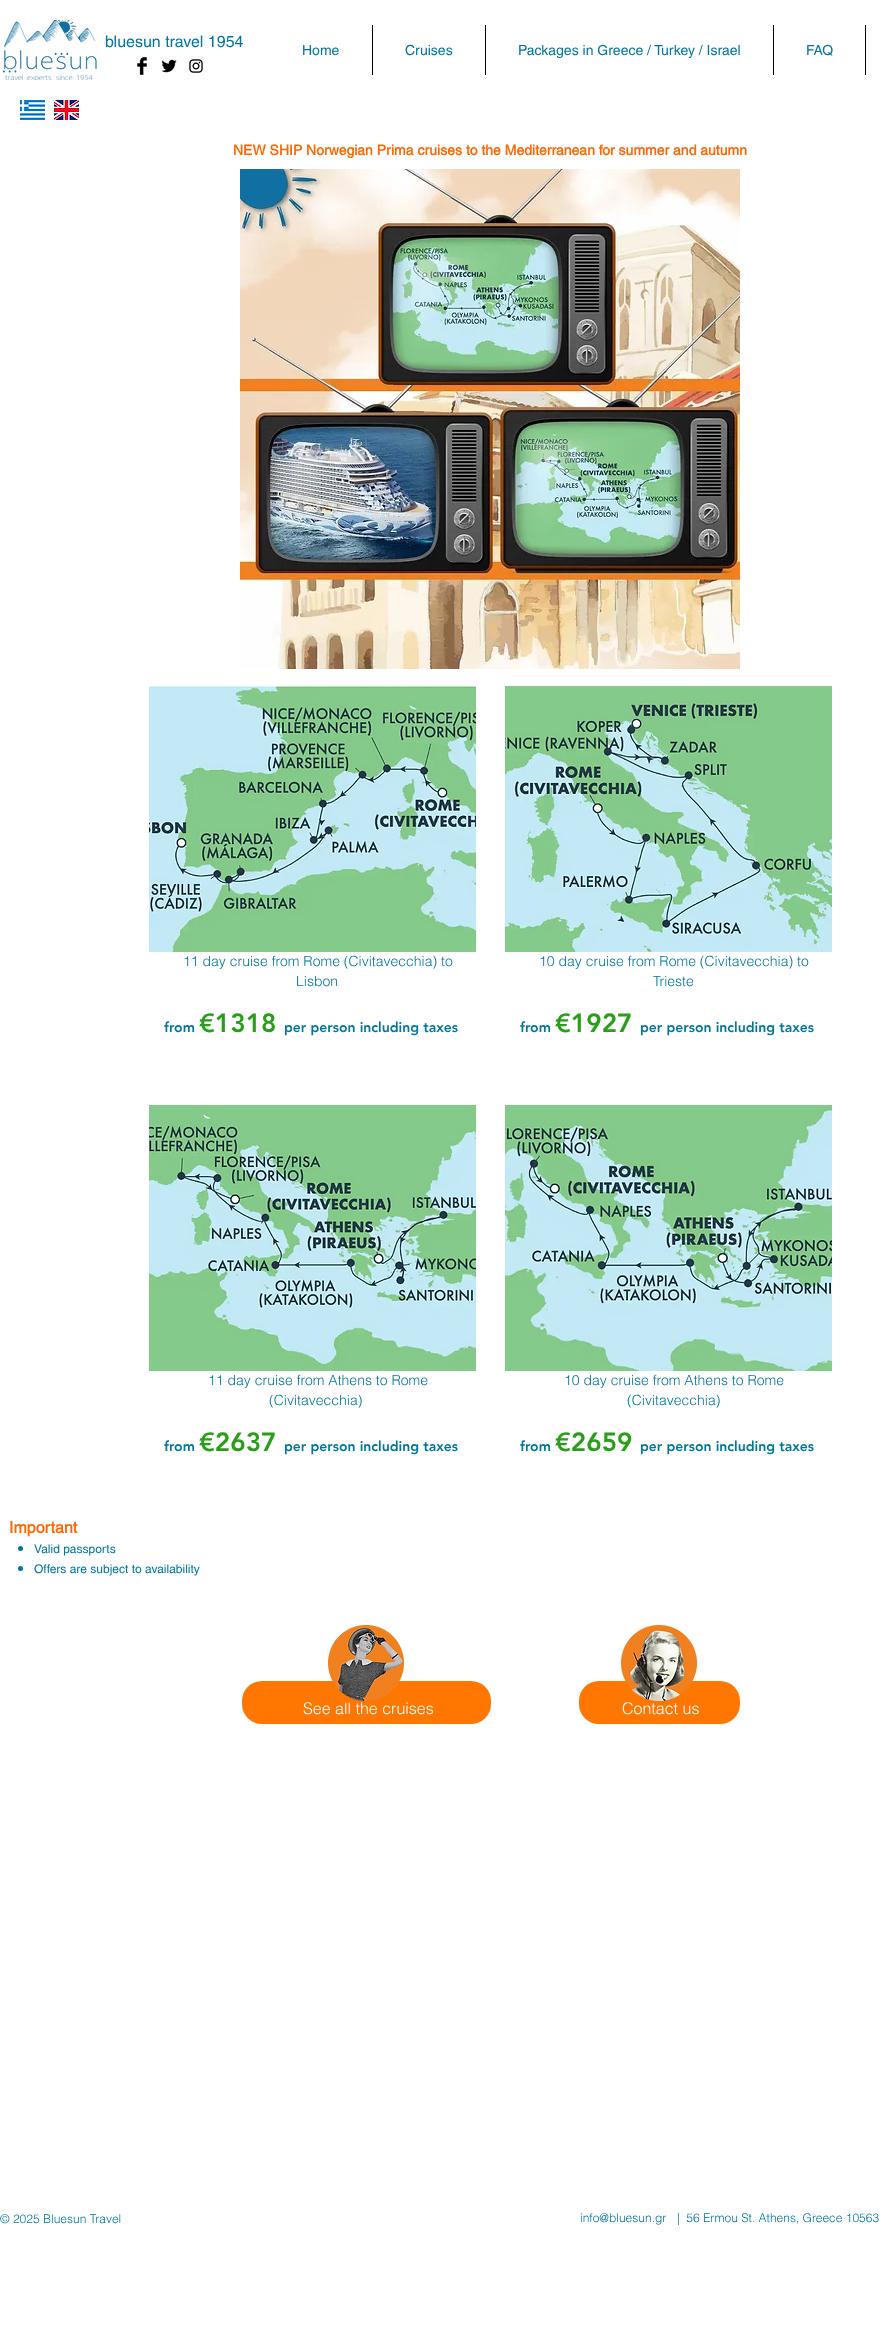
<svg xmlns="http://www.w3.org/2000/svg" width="890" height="2325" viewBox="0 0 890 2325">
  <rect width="100%" height="100%" fill="#fff"/>
  <image x="3" y="20" width="94" height="60" href="img/1.png"/>
  <path d="M372 25h1v50H372z" fill="#000"/>
  <path d="M485 25h1v50H485z" fill="#000"/>
  <path d="M773 25h1v50H773z" fill="#000"/>
  <path d="M865 25h1v50H865z" fill="#000"/>
  <image x="137" y="57" width="10" height="18" href="img/2.png"/>
  <image x="161" y="59" width="16" height="14" href="img/3.png"/>
  <image x="189" y="59" width="14" height="14" href="img/4.png"/>
  <image x="20" y="100" width="25" height="20" href="img/5.png"/>
  <image x="54" y="100" width="25" height="20" href="img/6.png"/>
  <image x="240" y="169" width="500" height="500" href="img/7.png"/>
  <image x="149" y="686" width="327" height="266" href="img/8.png"/>
  <image x="149" y="1105" width="327" height="266" href="img/9.png"/>
  <image x="505" y="686" width="327" height="266" href="img/10.png"/>
  <image x="505" y="1105" width="327" height="266" href="img/11.png"/>
  <circle cx="20.5" cy="1548.5" r="2.5" fill="#00769e"/>
  <circle cx="20.5" cy="1568.5" r="2.5" fill="#00769e"/>
  <rect x="242" y="1681" width="249" height="43" rx="20" fill="#f70"/>
  <image x="328" y="1625" width="76" height="76" href="img/12.png"/>
  <rect x="579" y="1681" width="161" height="43" rx="20" fill="#f70"/>
  <image x="621" y="1625" width="76" height="76" href="img/13.png"/>
  <text x="105" y="47" font-family="helvetica" font-size="16" fill="#00769e">bluesun travel 1954</text>
  <g font-family="helvetica" font-size="14" fill="#00769e">
    <text x="302" y="55">Home</text>
    <text x="405" y="55">Cruises</text>
    <text x="518" y="55">Packages in Greece / Turkey / Israel</text>
    <text x="806" y="55">FAQ</text>
  </g>
  <text x="233" y="155" font-family="helvetica" font-size="14" font-weight="bold" fill="#f60">NEW SHIP Norwegian Prima cruises to the Mediterranean for summer and autumn</text>
  <g font-family="helvetica" font-size="14" font-weight="300" fill="#00769e">
    <text x="183" y="966">11 day cruise from Rome (Civitavecchia) to</text>
    <text x="296" y="986">Lisbon</text>
  </g>
  <text x="164" y="1032" font-family="'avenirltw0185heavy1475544'" font-size="14" font-weight="900" fill="#00769e">from</text>
  <text x="199" y="1032" font-family="'avenirltw0185heavy1475544'" font-size="26" font-weight="900" fill="#289e19">€1318</text>
  <text x="284" y="1032" font-family="'avenirltw0185heavy1475544'" font-size="14" font-weight="900" fill="#00769e">per person including taxes</text>
  <g font-family="helvetica" font-size="14" font-weight="300" fill="#00769e">
    <text x="208" y="1385">11 day cruise from Athens to Rome</text>
    <text x="269" y="1405">(Civitavecchia)</text>
  </g>
  <text x="164" y="1451" font-family="'avenirltw0185heavy1475544'" font-size="14" font-weight="900" fill="#00769e">from</text>
  <text x="199" y="1451" font-family="'avenirltw0185heavy1475544'" font-size="26" font-weight="900" fill="#289e19">€2637</text>
  <text x="284" y="1451" font-family="'avenirltw0185heavy1475544'" font-size="14" font-weight="900" fill="#00769e">per person including taxes</text>
  <g font-family="helvetica" font-size="14" font-weight="300" fill="#00769e">
    <text x="539" y="966">10 day cruise from Rome (Civitavecchia) to</text>
    <text x="653" y="986">Trieste</text>
  </g>
  <text x="520" y="1032" font-family="'avenirltw0185heavy1475544'" font-size="14" font-weight="900" fill="#00769e">from</text>
  <text x="555" y="1032" font-family="'avenirltw0185heavy1475544'" font-size="26" font-weight="900" fill="#289e19">€1927</text>
  <text x="640" y="1032" font-family="'avenirltw0185heavy1475544'" font-size="14" font-weight="900" fill="#00769e">per person including taxes</text>
  <g font-family="helvetica" font-size="14" font-weight="300" fill="#00769e">
    <text x="564" y="1385">10 day cruise from Athens to Rome</text>
    <text x="627" y="1405">(Civitavecchia)</text>
  </g>
  <text x="520" y="1451" font-family="'avenirltw0185heavy1475544'" font-size="14" font-weight="900" fill="#00769e">from</text>
  <text x="555" y="1451" font-family="'avenirltw0185heavy1475544'" font-size="26" font-weight="900" fill="#289e19">€2659</text>
  <text x="640" y="1451" font-family="'avenirltw0185heavy1475544'" font-size="14" font-weight="900" fill="#00769e">per person including taxes</text>
  <text x="9" y="1533" font-family="helvetica" font-size="16" font-weight="bold" fill="#f60">Important</text>
  <g font-family="helvetica" font-size="12" fill="#00769e">
    <text x="34" y="1553">Valid passports</text>
    <text x="34" y="1573">Offers are subject to availability</text>
  </g>
  <g font-family="helvetica" font-size="16" font-weight="300" fill="#fff">
    <text x="303" y="1714">See all the cruises</text>
    <text x="622" y="1714">Contact us</text>
  </g>
  <g font-family="helvetica" font-size="12" font-weight="300" fill="#00769e">
    <text x="0" y="2223">© 2025 Bluesun Travel</text>
    <text x="580" y="2222">info@bluesun.gr</text>
    <text x="677" y="2222" xml:space="preserve">|  56 Ermou St. Athens, Greece 10563</text>
  </g>
</svg>
